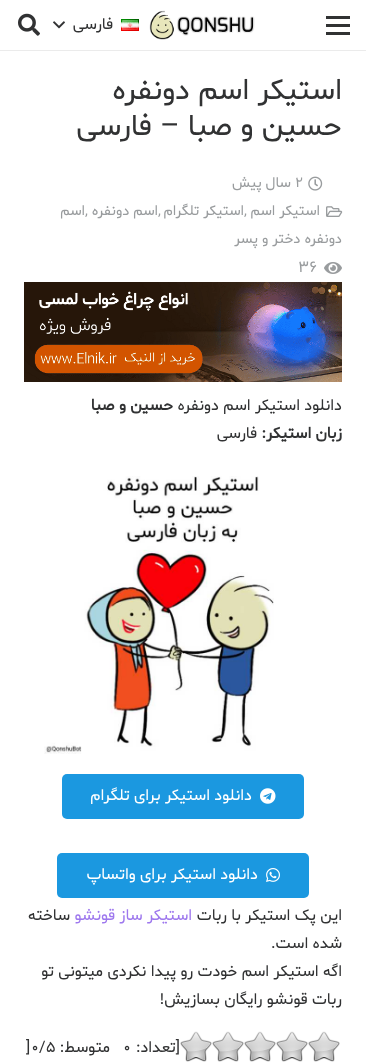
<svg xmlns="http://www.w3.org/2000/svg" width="366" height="1064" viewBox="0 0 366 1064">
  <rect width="100%" height="100%" fill="#fff"/>
  <path d="M0 50h366v1H0z" fill="#ebebeb"/>
  <path d="M326 24h24v3H326z" fill="#313233"/>
  <path d="M326 16h24v3H326z" fill="#313233"/>
  <path d="M326 32h24v3H326z" fill="#313233"/>
  <image x="149" y="10" width="106" height="30" href="img/1.png"/>
  <image x="121" y="19" width="18" height="12" href="img/2.png"/>
  <image x="53" y="21" width="12" height="8" href="img/3.png"/>
  <image x="18" y="13" width="22" height="23" href="img/4.png"/>
  <image x="308" y="176" width="15" height="15" href="img/5.png"/>
  <image x="326" y="206" width="17" height="11" href="img/6.png"/>
  <image x="324" y="262" width="18" height="12" href="img/7.png"/>
  <image x="24" y="282" width="318" height="100" href="img/8.png"/>
  <image x="44" y="476" width="230" height="278" href="img/9.png"/>
  <rect x="62" y="774" width="242" height="45" rx="5" fill="#1b98e0"/>
  <image x="260" y="788" width="16" height="16" href="img/10.png"/>
  <rect x="57" y="853" width="252" height="45" rx="5" fill="#1b98e0"/>
  <image x="266" y="868" width="14" height="14" href="img/11.png"/>
  <image x="180" y="1031" width="160" height="31" href="img/12.png"/>
  <text x="113" y="29" font-family="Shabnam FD" font-size="16" direction="rtl" fill="#313233">فارسی</text>
  <g font-family="Shabnam FD" font-size="30" direction="rtl" fill="#313233">
    <text x="342" y="99">استیکر اسم دونفره</text>
    <text x="342" y="135">حسین و صبا – فارسی</text>
  </g>
  <text x="295" y="187" font-family="Shabnam FD" font-size="14.5" fill="#999c9e">2</text>
  <g font-family="Shabnam FD" font-size="14.5" direction="rtl" fill="#999c9e">
    <text x="291" y="187">سال پیش</text>
    <text x="320" y="215">استیکر اسم</text>
  </g>
  <text x="244" y="215" font-family="Shabnam FD" font-size="14.5" fill="#999c9e">,</text>
  <text x="244" y="215" font-family="Shabnam FD" font-size="14.5" direction="rtl" fill="#999c9e">استیکر تلگرام</text>
  <text x="158" y="215" font-family="Shabnam FD" font-size="14.5" fill="#999c9e">,</text>
  <text x="158" y="215" font-family="Shabnam FD" font-size="14.5" direction="rtl" fill="#999c9e">اسم دونفره</text>
  <text x="85" y="215" font-family="Shabnam FD" font-size="14.5" fill="#999c9e">,</text>
  <g font-family="Shabnam FD" font-size="14.5" direction="rtl" fill="#999c9e">
    <text x="85" y="215">اسم</text>
    <text x="342" y="243">دونفره دختر و پسر</text>
  </g>
  <text x="298" y="272" font-family="Shabnam FD" font-size="16" fill="#999c9e">36</text>
  <text x="342" y="410" font-family="Shabnam FD" font-size="16" direction="rtl" fill="#313233">دانلود استیکر اسم دونفره</text>
  <g font-family="Shabnam FD" font-size="16" font-weight="bold" direction="rtl" fill="#313233">
    <text x="173" y="410">حسین و صبا</text>
    <text x="342" y="438">زبان استیکر:</text>
  </g>
  <text x="257" y="438" font-family="Shabnam FD" font-size="16" direction="rtl" fill="#313233">فارسی</text>
  <g font-family="Shabnam FD" font-size="16" direction="rtl" fill="#fff">
    <text x="252" y="800">دانلود استیکر برای تلگرام</text>
    <text x="258" y="879">دانلود استیکر برای واتساپ</text>
  </g>
  <text x="342" y="920" font-family="Shabnam FD" font-size="16" direction="rtl" fill="#313233">این پک استیکر با ربات</text>
  <text x="192" y="920" font-family="Shabnam FD" font-size="16" direction="rtl" fill="#9e78ee">استیکر ساز قونشو</text>
  <g font-family="Shabnam FD" font-size="16" direction="rtl" fill="#313233">
    <text x="70" y="920">ساخته</text>
    <text x="342" y="948">شده است.</text>
    <text x="342" y="976">اگه استیکر اسم خودت رو پیدا نکردی میتونی تو</text>
    <text x="342" y="1004">ربات قونشو رایگان بسازیش!</text>
    <text x="180" y="1052">[تعداد:</text>
  </g>
  <text x="123" y="1052" font-family="Shabnam FD" font-size="16" fill="#313233">0</text>
  <text x="110" y="1052" font-family="Shabnam FD" font-size="16" direction="rtl" fill="#313233">متوسط:</text>
  <g font-family="Shabnam FD" font-size="16" fill="#313233">
    <text x="31" y="1052">0/5</text>
    <text x="26" y="1052">]</text>
  </g>
</svg>
